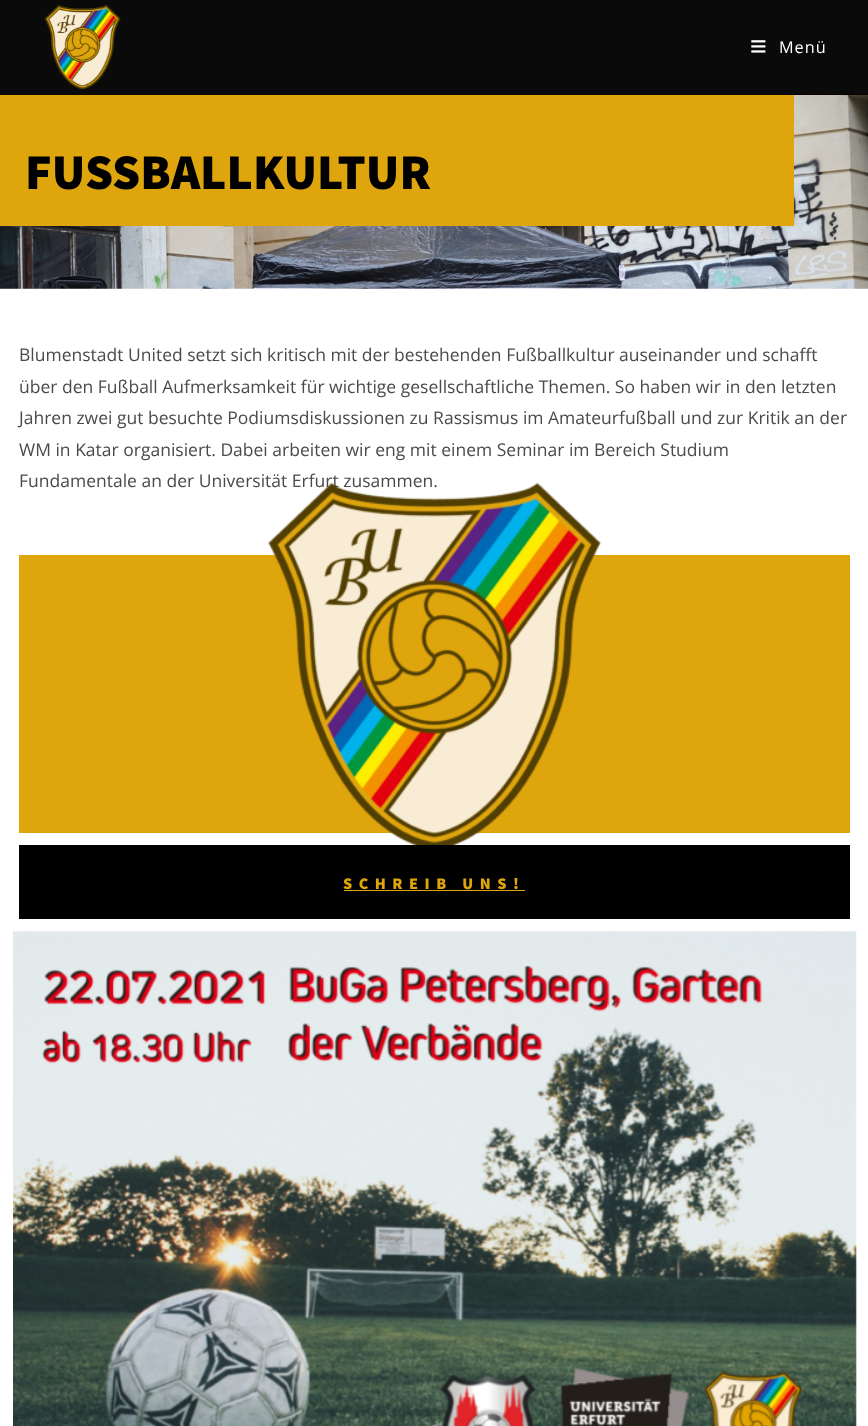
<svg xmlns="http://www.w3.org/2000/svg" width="868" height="1426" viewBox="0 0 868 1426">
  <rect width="100%" height="100%" fill="#fff"/>
  <path d="M0 0h868v94H0z" fill="#0a0a0a"/>
  <path d="M0 94h868v1H0z" fill="#0a0000"/>
  <image x="44" y="4" width="77" height="86" href="img/1.png"/>
  <image x="751" y="40" width="15" height="13" href="img/2.png"/>
  <image x="0" y="95" width="868" height="194" href="img/3.png"/>
  <path d="M0 95h794v131H0z" fill="#dfa50c"/>
  <path d="M19 555h831v278H19z" fill="#dfa50c"/>
  <path d="M19 845h831v74H19z" fill="#000"/>
  <path d="M344 890h181v1H344z" fill="#dfa50c"/>
  <image x="13" y="931" width="844" height="495" href="img/5.png"/>
  <text x="779" y="53" font-family="Open Sans" font-size="16.25" letter-spacing="1" fill="#fff">Menü</text>
  <text x="25" y="189" font-family="Assistant" font-size="50" font-weight="800" fill="#000">FUSSBALLKULTUR</text>
  <g font-family="Open Sans" font-size="17.5" fill="#4a4a4a">
    <text x="19" y="361">Blumenstadt United setzt sich kritisch mit der bestehenden Fußballkultur auseinander und schafft</text>
    <text x="19" y="393">über den Fußball Aufmerksamkeit für wichtige gesellschaftliche Themen. So haben wir in den letzten</text>
    <text x="19" y="424">Jahren zwei gut besuchte Podiumsdiskussionen zu Rassismus im Amateurfußball und zur Kritik an der</text>
    <text x="19" y="456">WM in Katar organisiert. Dabei arbeiten wir eng mit einem Seminar im Bereich Studium</text>
    <text x="19" y="487">Fundamentale an der Universität Erfurt zusammen.</text>
  </g>
  <image x="267" y="482" width="335" height="363" href="img/4.png"/>
  <text x="343" y="889" font-family="Assistant" font-size="16.25" font-weight="800" letter-spacing="6.5" fill="#dfa50c">SCHREIB UNS!</text>
</svg>
